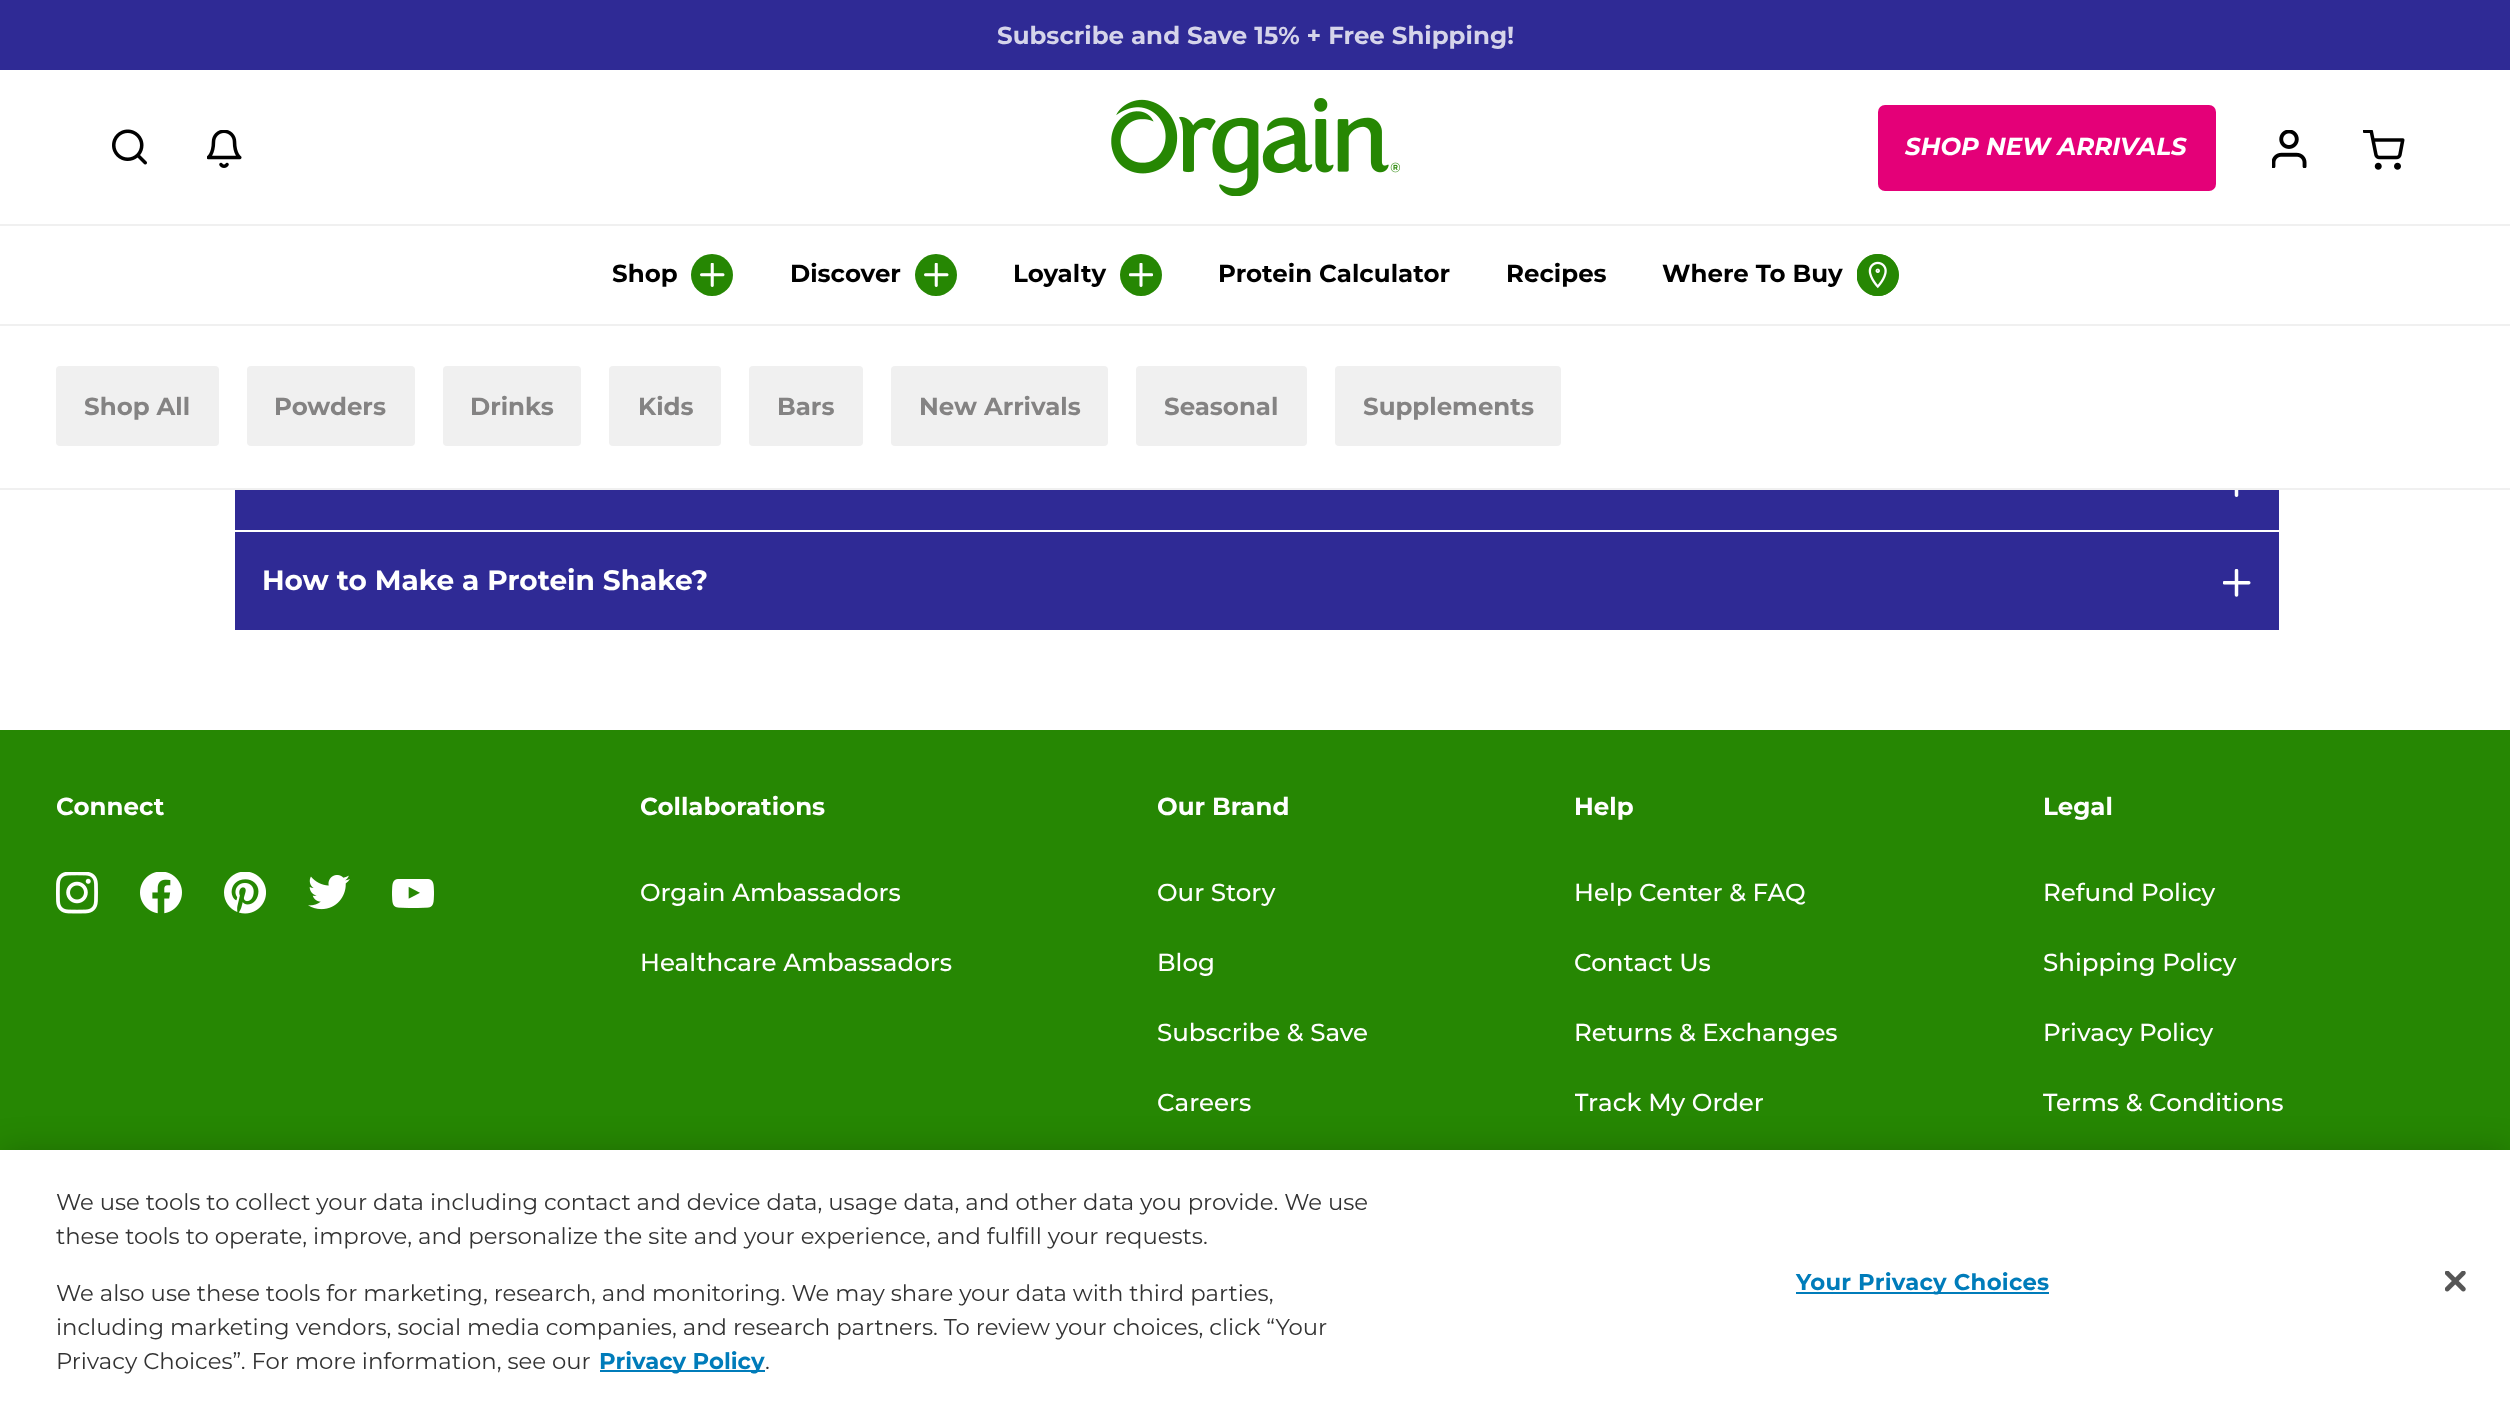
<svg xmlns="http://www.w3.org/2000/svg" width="2510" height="1418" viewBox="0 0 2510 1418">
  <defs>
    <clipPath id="clip1"><path d="M641 830h311v154H641z"/></clipPath>
    <clipPath id="clip2"><path d="M1575 830h263v364H1575z"/></clipPath>
  </defs>
  <rect width="100%" height="100%" fill="#fff"/>
  <path d="M0 324h2510v2H0z" fill="#f0f0f0"/>
  <path d="M0 0h2510v70H0z" fill="#2f2a95"/>
  <image x="112" y="129" width="35" height="36" href="img/1.png"/>
  <image x="207" y="130" width="35" height="38" href="img/2.png"/>
  <image x="1111" y="98" width="289" height="98" href="img/3.png"/>
  <rect x="1878" y="105" width="338" height="86" rx="7" fill="#e40078"/>
  <image x="2272" y="130" width="35" height="38" href="img/4.png"/>
  <image x="2363" y="130" width="42" height="40" href="img/5.png"/>
  <path d="M0 224h2510v2H0z" fill="#f0f0f0"/>
  <circle cx="712" cy="275" r="21" fill="#268703"/>
  <image x="700" y="263" width="25" height="24" href="img/6.png"/>
  <circle cx="936" cy="275" r="21" fill="#268703"/>
  <image x="924" y="263" width="25" height="24" href="img/6.png"/>
  <circle cx="1141" cy="275" r="21" fill="#268703"/>
  <image x="1129" y="263" width="24" height="24" href="img/7.png"/>
  <circle cx="1878" cy="275" r="21" fill="#268703"/>
  <image x="1857" y="254" width="42" height="42" href="img/8.png"/>
  <path d="M0 488h2510v2H0z" fill="#f0f0f0"/>
  <rect x="56" y="366" width="163" height="80" rx="4" fill="#f0f0f0"/>
  <rect x="247" y="366" width="168" height="80" rx="4" fill="#f0f0f0"/>
  <rect x="443" y="366" width="138" height="80" rx="4" fill="#f0f0f0"/>
  <rect x="609" y="366" width="112" height="80" rx="4" fill="#f0f0f0"/>
  <rect x="749" y="366" width="114" height="80" rx="4" fill="#f0f0f0"/>
  <rect x="891" y="366" width="217" height="80" rx="4" fill="#f0f0f0"/>
  <rect x="1136" y="366" width="171" height="80" rx="4" fill="#f0f0f0"/>
  <rect x="1335" y="366" width="226" height="80" rx="4" fill="#f0f0f0"/>
  <path d="M235 490h2044v40H235z" fill="#2f2a95"/>
  <image x="2234" y="490" width="5" height="7" href="img/9.png"/>
  <path d="M235 532h2044v98H235z" fill="#2f2a95"/>
  <image x="2223" y="569" width="28" height="28" href="img/10.png"/>
  <path d="M0 730h2510v420H0z" fill="#268703"/>
  <image x="56" y="872" width="42" height="42" href="img/11.png"/>
  <image x="140" y="872" width="42" height="42" href="img/12.png"/>
  <image x="224" y="872" width="42" height="42" href="img/13.png"/>
  <image x="308" y="875" width="42" height="35" href="img/14.png"/>
  <image x="392" y="879" width="42" height="29" href="img/15.png"/>
  <path d="M0 1150h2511v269H0z" fill="#00000033" filter="blur(16px)"/>
  <path d="M0 1150h2510v268H0z" fill="#fff"/>
  <path d="M600 1370h165v2H600z" fill="#007cba"/>
  <path d="M1796 1292h253v2H1796z" fill="#007cba"/>
  <image x="2445" y="1271" width="21" height="21" href="img/16.png"/>
  <text x="997" y="44" font-family="Montserrat" font-size="24.5" font-weight="100" fill="#d5d4ea">Subscribe and Save 15% + Free Shipping!</text>
  <text x="1905" y="155" font-family="Montserrat" font-size="24.5" font-weight="bold" font-style="italic" fill="#fff">SHOP NEW ARRIVALS</text>
  <g font-family="Montserrat" font-size="24.5" font-weight="100" fill="#000">
    <text x="612" y="282">Shop</text>
    <text x="790" y="282">Discover</text>
    <text x="1013" y="282">Loyalty</text>
    <text x="1218" y="282">Protein Calculator</text>
    <text x="1506" y="282">Recipes</text>
    <text x="1662" y="282">Where To Buy</text>
  </g>
  <g font-family="Montserrat" font-size="24.5" font-weight="100" fill="#848383">
    <text x="84" y="415">Shop All</text>
    <text x="274" y="415">Powders</text>
    <text x="470" y="415">Drinks</text>
    <text x="638" y="415">Kids</text>
    <text x="777" y="415">Bars</text>
    <text x="919" y="415">New Arrivals</text>
    <text x="1164" y="415">Seasonal</text>
    <text x="1363" y="415">Supplements</text>
  </g>
  <text x="262" y="590" font-family="Montserrat" font-size="28" font-weight="100" fill="#fff">How to Make a Protein Shake?</text>
  <g font-family="Montserrat" font-size="24.5" font-weight="100" fill="#fff">
    <text x="56" y="815">Connect</text>
    <text x="640" y="815">Collaborations</text>
  </g>
  <g clip-path="url(#clip1)">
    <text x="640" y="901" font-family="Montserrat" font-size="24.5" font-weight="500" fill="#fff">Orgain Ambassadors</text>
  </g>
  <text x="640" y="971" font-family="Montserrat" font-size="24.5" font-weight="500" fill="#fff">Healthcare Ambassadors</text>
  <text x="1157" y="815" font-family="Montserrat" font-size="24.5" font-weight="100" fill="#fff">Our Brand</text>
  <g font-family="Montserrat" font-size="24.5" font-weight="500" fill="#fff">
    <text x="1157" y="901">Our Story</text>
    <text x="1157" y="971">Blog</text>
    <text x="1157" y="1041">Subscribe &amp; Save</text>
    <text x="1157" y="1111">Careers</text>
  </g>
  <text x="1574" y="815" font-family="Montserrat" font-size="24.5" font-weight="100" fill="#fff">Help</text>
  <g font-family="Montserrat" font-size="24.5" font-weight="500" fill="#fff">
    <text x="1574" y="901">Help Center &amp; FAQ</text>
    <text x="1574" y="971">Contact Us</text>
    <text x="1574" y="1041">Returns &amp; Exchanges</text>
  </g>
  <g clip-path="url(#clip2)">
    <text x="1574" y="1111" font-family="Montserrat" font-size="24.5" font-weight="500" fill="#fff">Track My Order</text>
  </g>
  <text x="2043" y="815" font-family="Montserrat" font-size="24.5" font-weight="100" fill="#fff">Legal</text>
  <g font-family="Montserrat" font-size="24.5" font-weight="500" fill="#fff">
    <text x="2043" y="901">Refund Policy</text>
    <text x="2043" y="971">Shipping Policy</text>
    <text x="2043" y="1041">Privacy Policy</text>
    <text x="2043" y="1111">Terms &amp; Conditions</text>
  </g>
  <g font-family="'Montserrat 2'" font-size="22.75" font-weight="100" fill="#333">
    <text x="56" y="1210">We use tools to collect your data including contact and device data, usage data, and other data you provide. We use</text>
    <text x="56" y="1244">these tools to operate, improve, and personalize the site and your experience, and fulfill your requests.</text>
    <text x="56" y="1301">We also use these tools for marketing, research, and monitoring. We may share your data with third parties,</text>
    <text x="56" y="1335">including marketing vendors, social media companies, and research partners. To review your choices, click “Your</text>
    <text x="56" y="1369">Privacy Choices”. For more information, see our</text>
  </g>
  <text x="599" y="1369" font-family="Montserrat" font-size="22.75" font-weight="100" fill="#007cba">Privacy Policy</text>
  <text x="765" y="1369" font-family="'Montserrat 2'" font-size="22.75" font-weight="100" fill="#333">.</text>
  <text x="1796" y="1290" font-family="Montserrat" font-size="22.75" font-weight="100" letter-spacing="0.25" fill="#007cba">Your Privacy Choices</text>
</svg>
